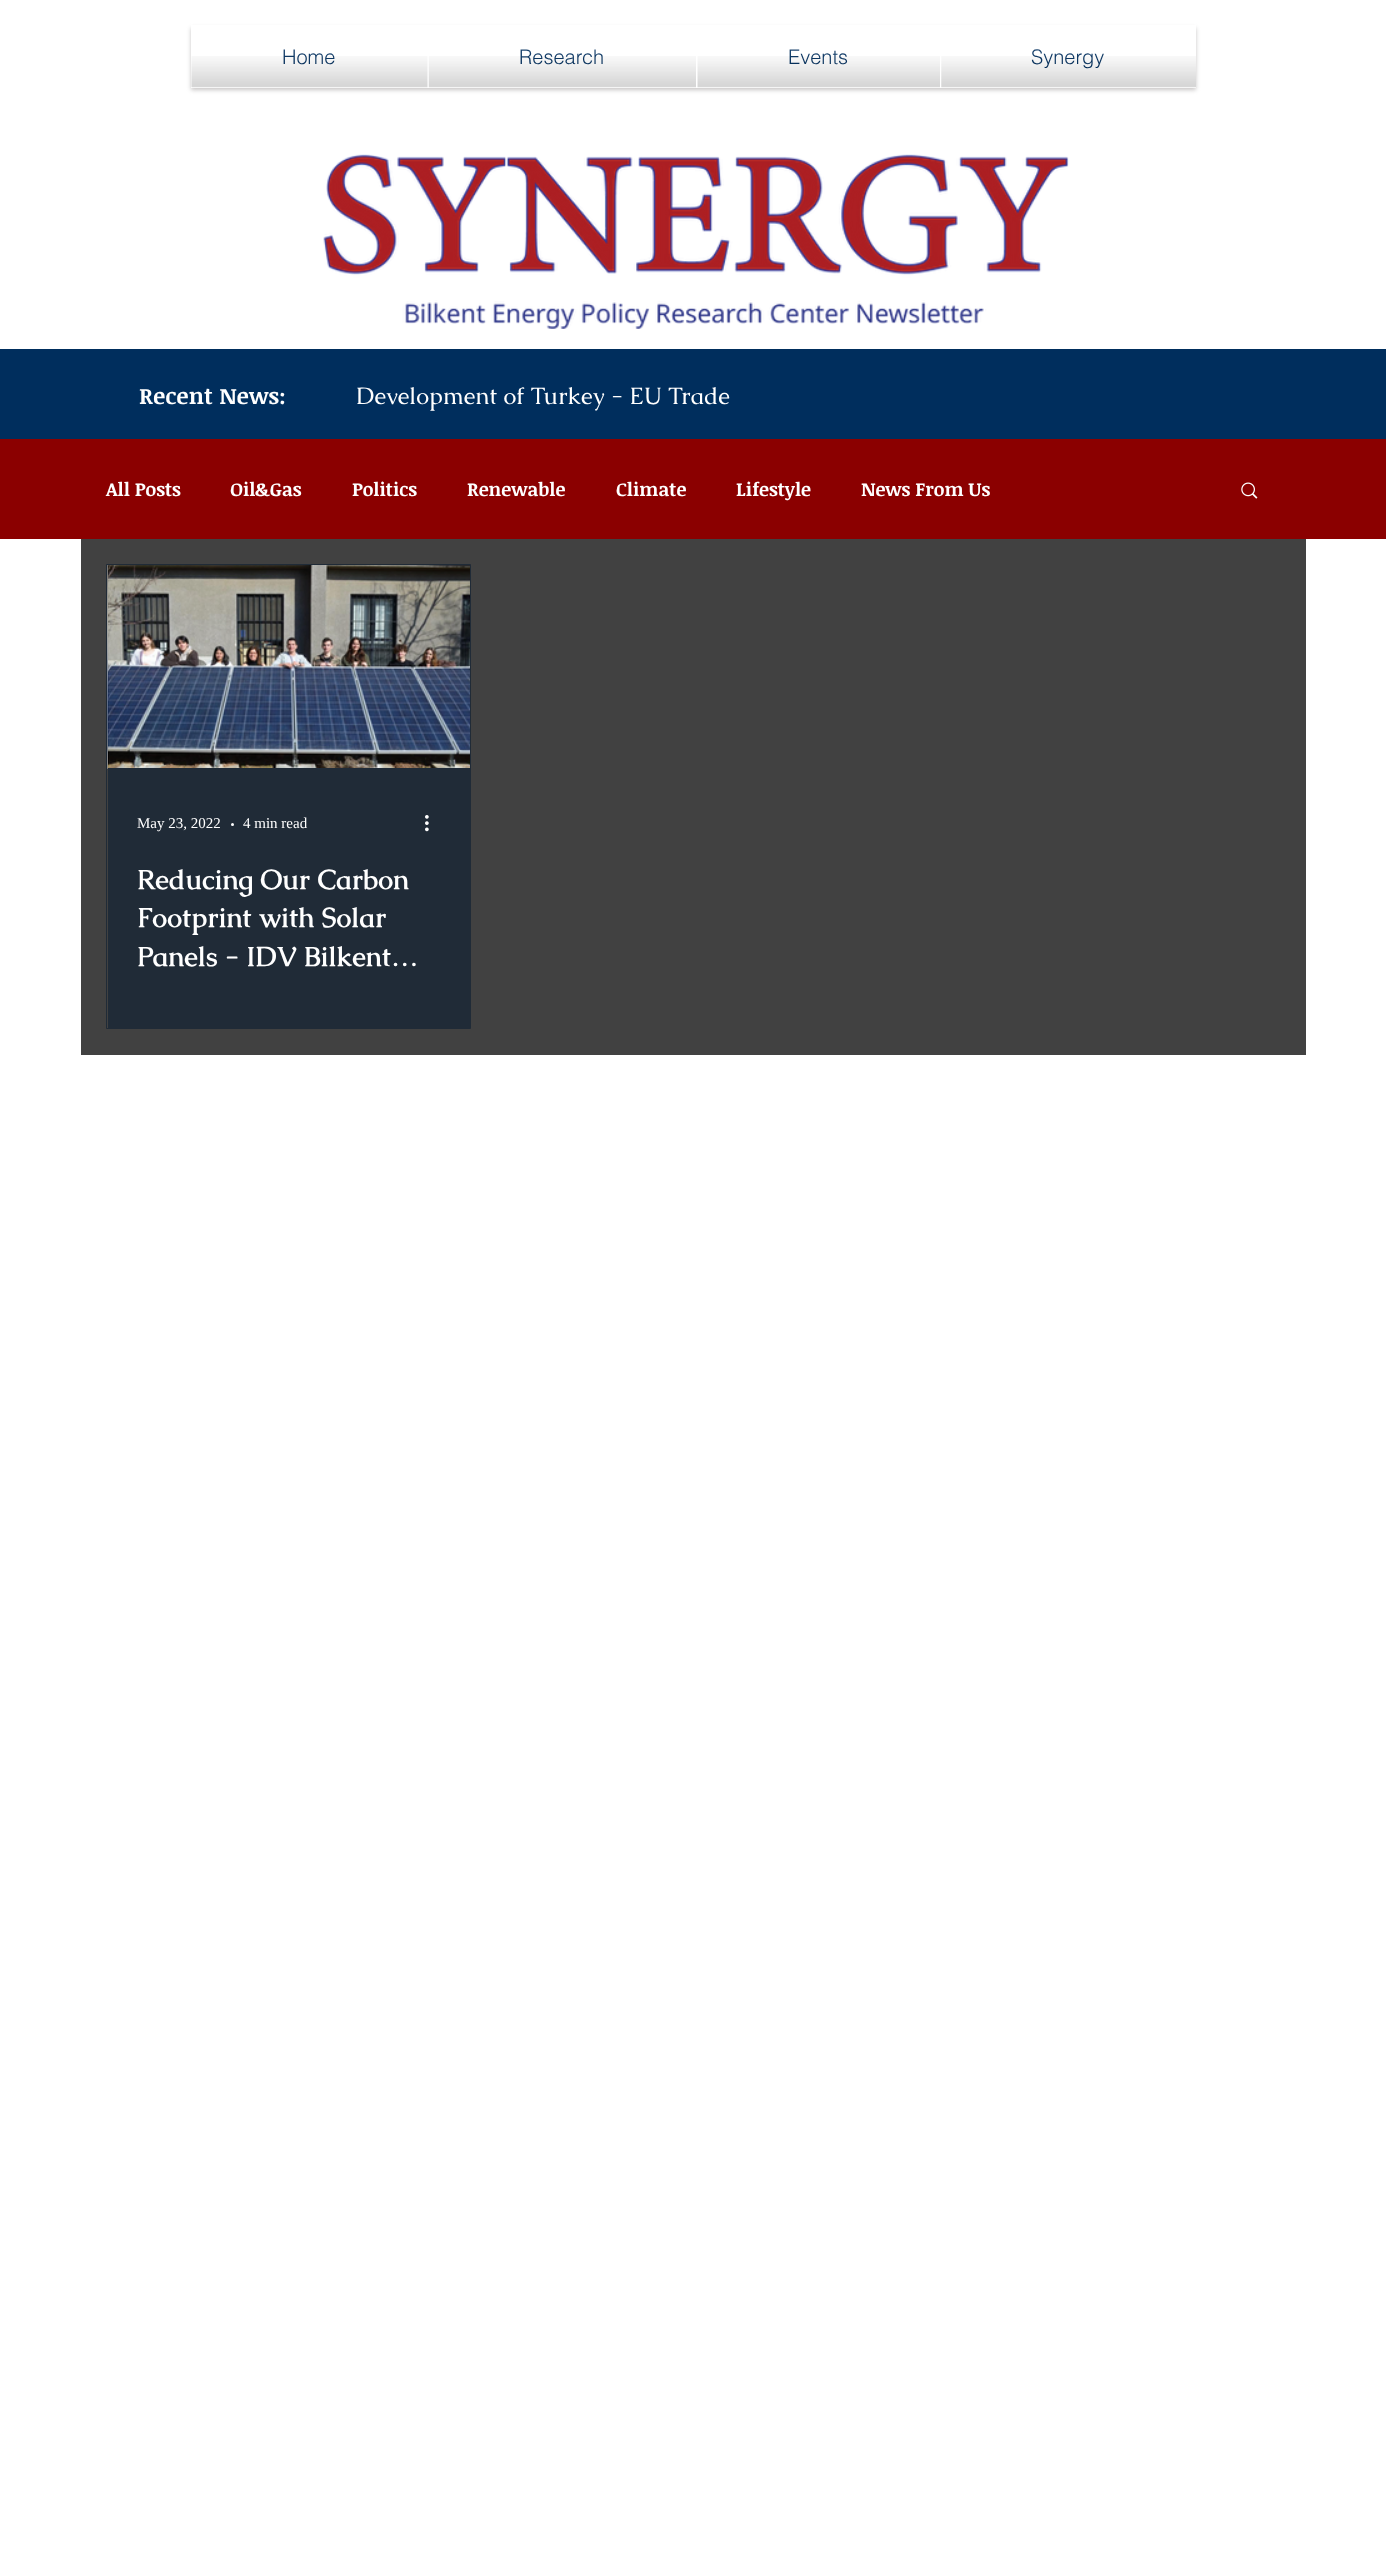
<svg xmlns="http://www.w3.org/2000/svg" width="1386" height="2572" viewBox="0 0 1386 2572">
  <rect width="100%" height="100%" fill="#fff"/>
  <path d="M191 28h1005v62H191z" fill="#a29e9e99" filter="blur(2px)"/>
  <path d="M191 25h1005v63H191z" fill="#fff"/>
  <image x="323" y="154" width="746" height="175" href="img/9.png"/>
  <path d="M0 349h1386v90H0z" fill="#002e5d"/>
  <path d="M0 439h1386v100H0z" fill="#8b0000"/>
  <path d="M81 539h1225v516H81z" fill="#414141"/>
  <image x="1241" y="482" width="17" height="17" href="img/10.png"/>
  <path d="M106.5 564.5h364v464H106.5z" fill="none" stroke="#202b37"/>
  <image x="107" y="565" width="1" height="204" href="img/11.png"/>
  <image x="108" y="565" width="362" height="203" href="img/12.png"/>
  <path d="M108 768h362v260H108z" fill="#202b37"/>
  <circle cx="232.5" cy="824.5" r="1.5" fill="#fff"/>
  <image x="425" y="815" width="4" height="17" href="img/13.png"/>
  <text x="282" y="64" font-family="helvetica" font-size="20" font-weight="300" fill="#002e5d">Home</text>
  <image x="283" y="49" width="52" height="15" href="img/1.png"/>
  <image x="191" y="56" width="237" height="32" href="img/2.png"/>
  <text x="519" y="64" font-family="helvetica" font-size="20" font-weight="300" fill="#002e5d">Research</text>
  <image x="521" y="49" width="82" height="15" href="img/3.png"/>
  <image x="428" y="56" width="268" height="32" href="img/4.png"/>
  <text x="788" y="64" font-family="helvetica" font-size="20" font-weight="300" fill="#002e5d">Events</text>
  <image x="789" y="49" width="58" height="15" href="img/5.png"/>
  <image x="697" y="56" width="243" height="32" href="img/6.png"/>
  <text x="1031" y="64" font-family="helvetica" font-size="20" font-weight="300" fill="#002e5d">Synergy</text>
  <image x="1032" y="49" width="72" height="17" href="img/7.png"/>
  <image x="941" y="56" width="255" height="32" href="img/8.png"/>
  <text x="139" y="404" font-family="Noticia Text" font-size="22.5" font-weight="bold" letter-spacing="0.25" fill="#fff">Recent News:</text>
  <text x="356" y="404" font-family="Caudex" font-size="23.75" fill="#fff">Development of Turkey - EU Trade</text>
  <g font-family="Noticia Text" font-size="18.75" font-weight="bold" fill="#fff">
    <text x="106" y="496">All Posts</text>
    <text x="230" y="496">Oil&amp;Gas</text>
    <text x="352" y="496">Politics</text>
    <text x="467" y="496">Renewable</text>
    <text x="616" y="496">Climate</text>
    <text x="736" y="496">Lifestyle</text>
    <text x="861" y="496">News From Us</text>
  </g>
  <g font-family="Liberation Serif" font-size="15" fill="#fff">
    <text x="137" y="828">May 23, 2022</text>
    <text x="243" y="828">4 min read</text>
  </g>
  <g font-family="Caudex" font-size="27.5" font-weight="bold" fill="#fff">
    <text x="137" y="889">Reducing Our Carbon</text>
    <text x="137" y="927">Footprint with Solar</text>
    <text x="137" y="966">Panels - IDV Bilkent…</text>
  </g>
</svg>
